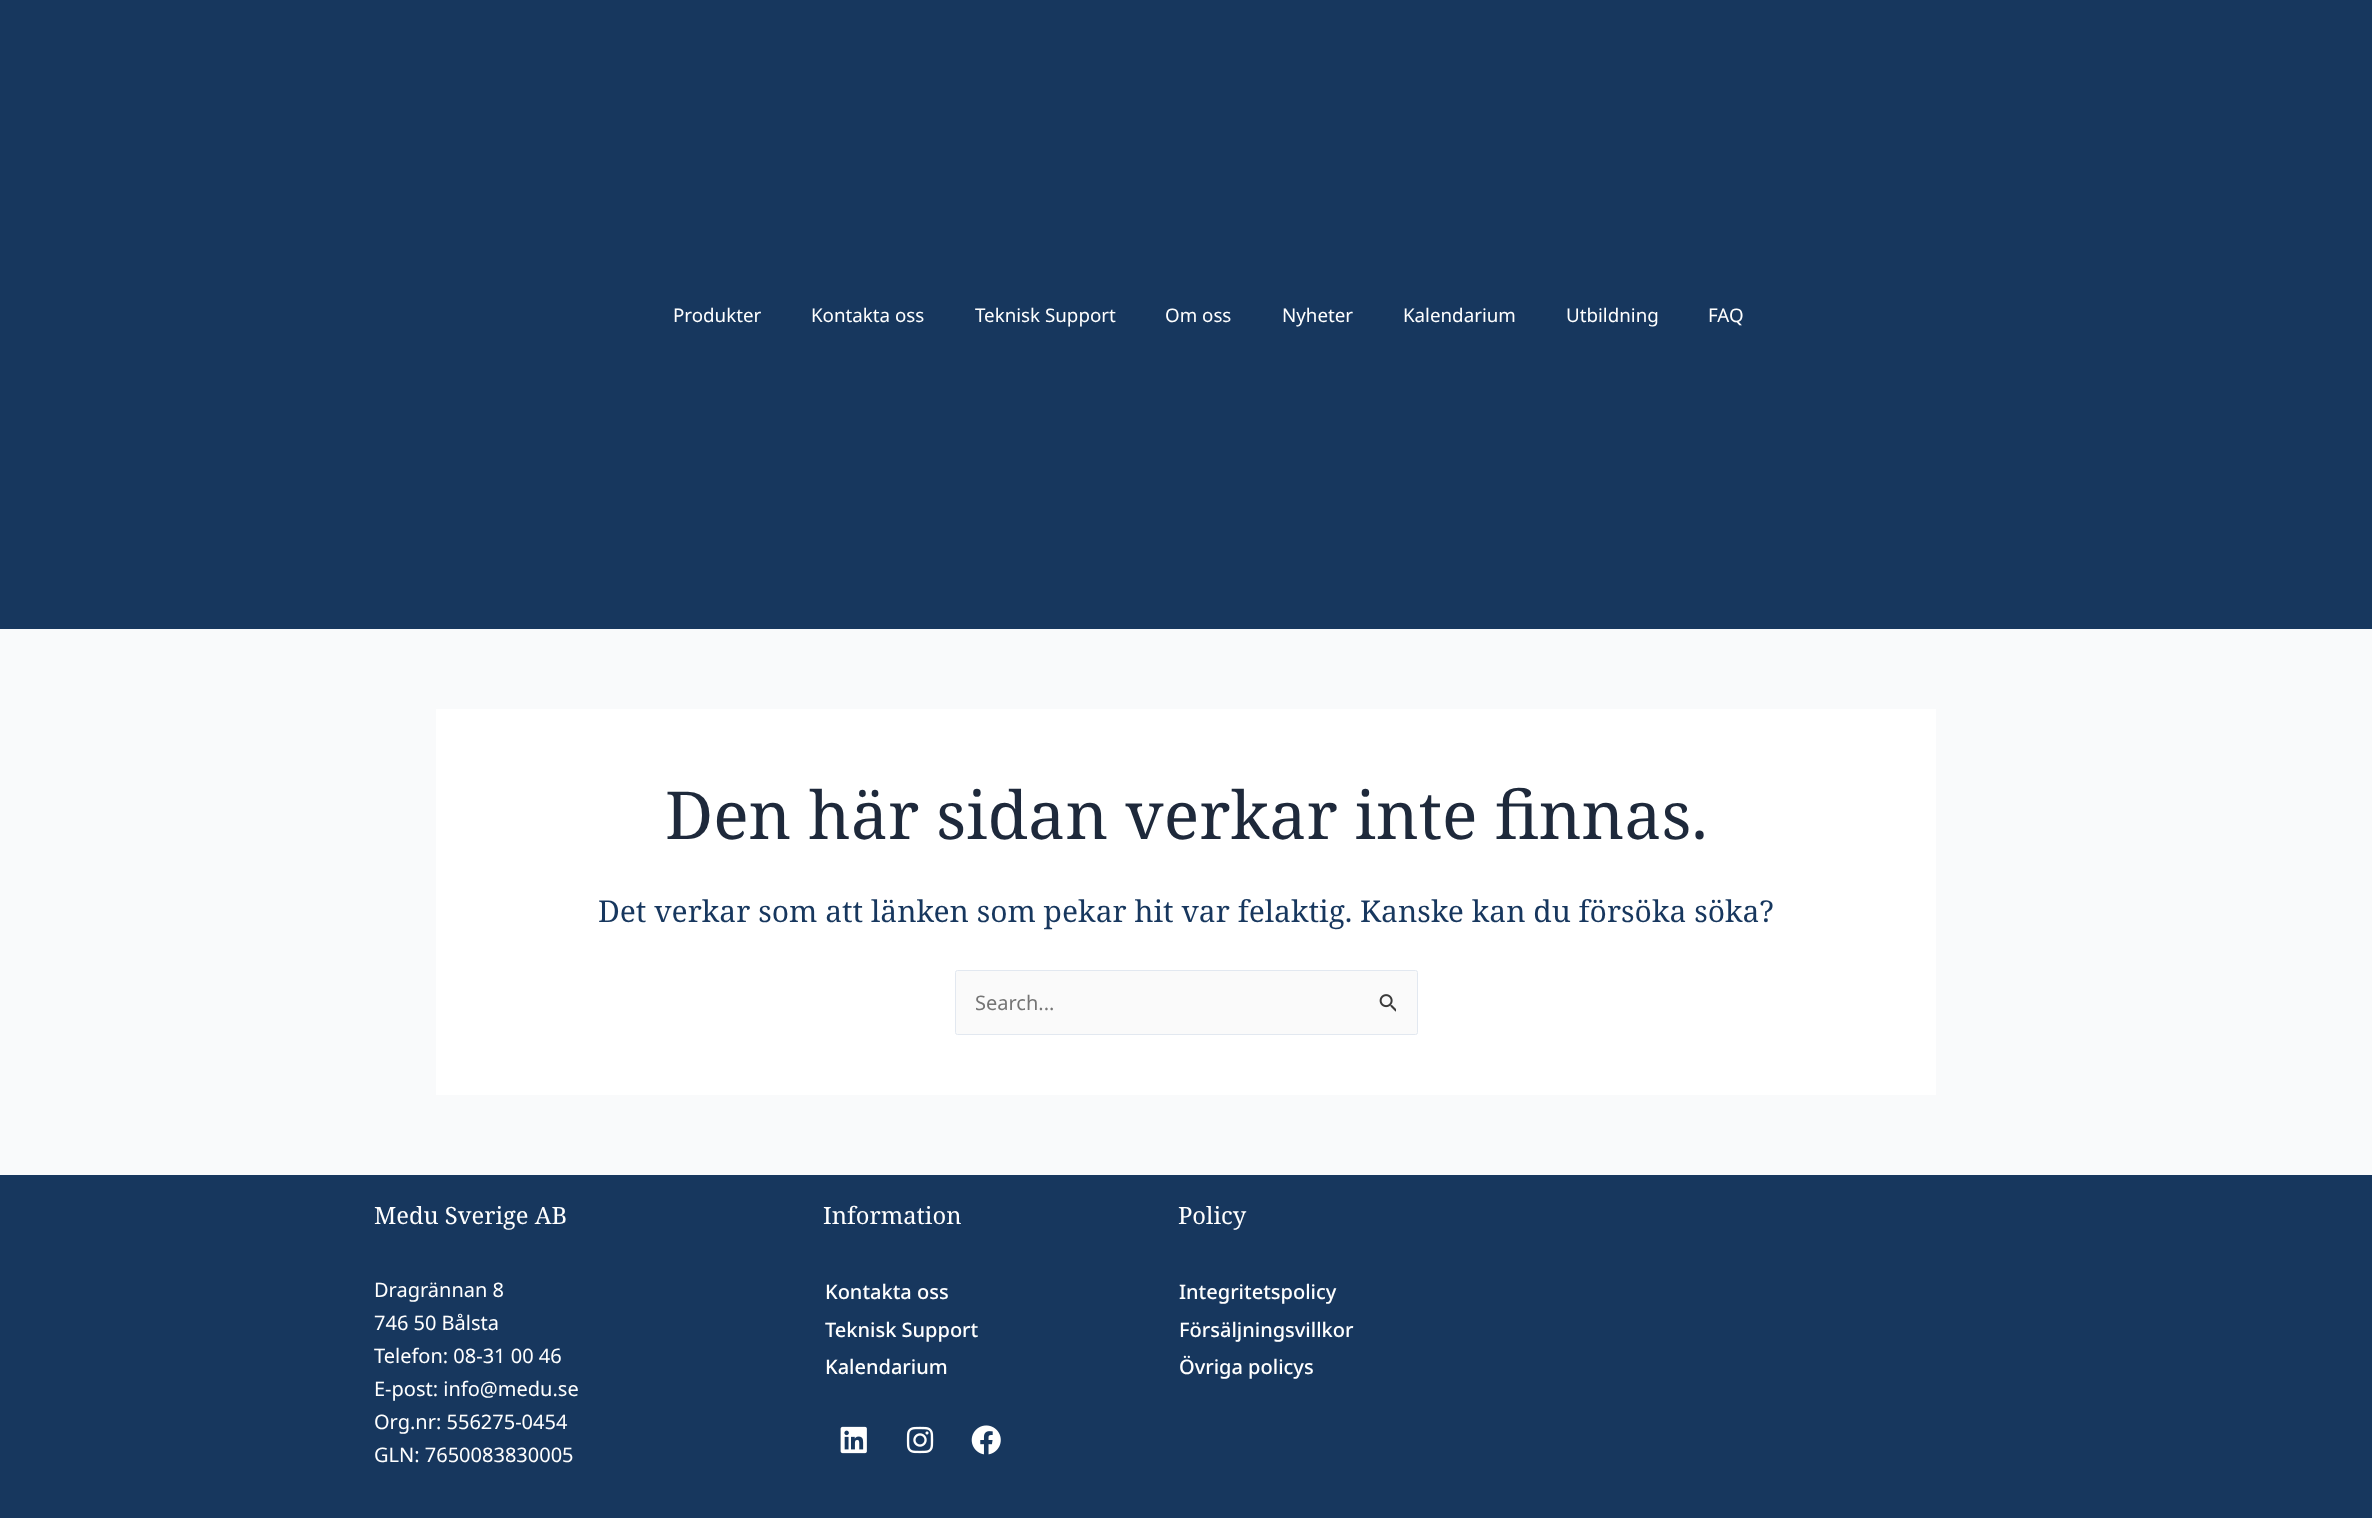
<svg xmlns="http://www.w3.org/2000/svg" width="2372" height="1518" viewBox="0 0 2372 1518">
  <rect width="100%" height="100%" fill="#f9fafb"/>
  <path d="M0 0h2372v629H0z" fill="#17375e"/>
  <path d="M436 709h1500v386H436z" fill="#fff"/>
  <rect x="955.5" y="970.5" width="462" height="64" rx="2" fill="#fafafa" stroke="#e2e8f0"/>
  <image x="1379" y="994" width="17" height="18" href="img/1.png"/>
  <path d="M0 1175h2372v343H0z" fill="#17375e"/>
  <image x="840" y="1426" width="27" height="28" href="img/2.png"/>
  <image x="906" y="1426" width="28" height="28" href="img/3.png"/>
  <image x="971" y="1425" width="30" height="30" href="img/4.png"/>
  <g font-family="Noto Sans" font-size="18.75" fill="#fff">
    <text x="673" y="322">Produkter</text>
    <text x="811" y="322">Kontakta oss</text>
    <text x="975" y="322">Teknisk Support</text>
    <text x="1165" y="322">Om oss</text>
    <text x="1282" y="322">Nyheter</text>
    <text x="1403" y="322">Kalendarium</text>
    <text x="1566" y="322">Utbildning</text>
    <text x="1708" y="322">FAQ</text>
  </g>
  <text x="665" y="839" font-family="Noto Serif" font-size="66.25" fill="#1e293b">Den här sidan verkar inte finnas.</text>
  <text x="598" y="922" font-family="Noto Serif" font-size="30" fill="#17375e">Det verkar som att länken som pekar hit var felaktig. Kanske kan du försöka söka?</text>
  <text x="975" y="1010" font-family="Noto Sans" font-size="20" fill="#757575">Search...</text>
  <text x="374" y="1224" font-family="Noto Serif" font-size="23.75" fill="#fff">Medu Sverige AB</text>
  <g font-family="Noto Sans" font-size="20" fill="#fff">
    <text x="374" y="1297">Dragrännan 8</text>
    <text x="374" y="1330">746 50 Bålsta</text>
    <text x="374" y="1363">Telefon: 08-31 00 46</text>
    <text x="374" y="1396">E-post: info@medu.se</text>
    <text x="374" y="1429">Org.nr: 556275-0454</text>
    <text x="374" y="1462">GLN: 7650083830005</text>
  </g>
  <text x="823" y="1224" font-family="Noto Serif" font-size="23.75" fill="#fff">Information</text>
  <g font-family="Noto Sans" font-size="20" font-weight="500" fill="#fff">
    <text x="825" y="1299">Kontakta oss</text>
    <text x="825" y="1337">Teknisk Support</text>
    <text x="825" y="1374">Kalendarium</text>
  </g>
  <text x="1178" y="1224" font-family="Noto Serif" font-size="23.75" fill="#fff">Policy</text>
  <g font-family="Noto Sans" font-size="20" font-weight="500" fill="#fff">
    <text x="1179" y="1299">Integritetspolicy</text>
    <text x="1179" y="1337">Försäljningsvillkor</text>
    <text x="1179" y="1374">Övriga policys</text>
  </g>
</svg>
